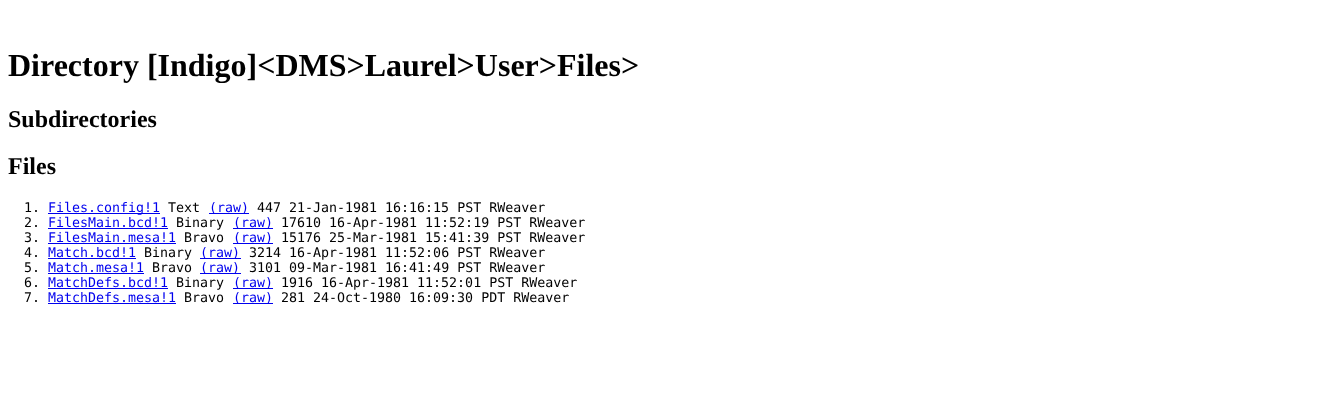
<svg xmlns="http://www.w3.org/2000/svg" width="1325" height="420" viewBox="0 0 1325 420">
  <rect width="100%" height="100%" fill="#fff"/>
  <path d="M48 213h112v1H48z" fill="#00e"/>
  <path d="M209 213h40v1H209z" fill="#00e"/>
  <path d="M48 228h120v1H48z" fill="#00e"/>
  <path d="M233 228h40v1H233z" fill="#00e"/>
  <path d="M48 243h128v1H48z" fill="#00e"/>
  <path d="M233 243h40v1H233z" fill="#00e"/>
  <path d="M48 258h88v1H48z" fill="#00e"/>
  <path d="M200 258h41v1H200z" fill="#00e"/>
  <path d="M48 273h96v1H48z" fill="#00e"/>
  <path d="M200 273h41v1H200z" fill="#00e"/>
  <path d="M48 288h120v1H48z" fill="#00e"/>
  <path d="M233 288h40v1H233z" fill="#00e"/>
  <path d="M48 303h128v1H48z" fill="#00e"/>
  <path d="M233 303h40v1H233z" fill="#00e"/>
  <text x="8" y="76" font-family="Liberation Serif" font-size="32" font-weight="bold" fill="#000">Directory [Indigo]&lt;DMS&gt;Laurel&gt;User&gt;Files&gt;</text>
  <g font-family="Liberation Serif" font-size="24" font-weight="bold" fill="#000">
    <text x="8" y="127">Subdirectories</text>
    <text x="8" y="174">Files</text>
  </g>
  <text x="24" y="212" font-family="DejaVu Sans Mono" font-size="13.3" fill="#000">1.</text>
  <text x="48" y="212" font-family="DejaVu Sans Mono" font-size="13.3" fill="#00e">Files.config!1</text>
  <text x="168" y="212" font-family="DejaVu Sans Mono" font-size="13.3" fill="#000">Text</text>
  <text x="209" y="212" font-family="DejaVu Sans Mono" font-size="13.3" fill="#00e">(raw)</text>
  <g font-family="DejaVu Sans Mono" font-size="13.3" fill="#000">
    <text x="257" y="212">447 21-Jan-1981 16:16:15 PST RWeaver</text>
    <text x="24" y="227">2.</text>
  </g>
  <text x="48" y="227" font-family="DejaVu Sans Mono" font-size="13.3" fill="#00e">FilesMain.bcd!1</text>
  <text x="176" y="227" font-family="DejaVu Sans Mono" font-size="13.3" fill="#000">Binary</text>
  <text x="233" y="227" font-family="DejaVu Sans Mono" font-size="13.3" fill="#00e">(raw)</text>
  <g font-family="DejaVu Sans Mono" font-size="13.3" fill="#000">
    <text x="281" y="227">17610 16-Apr-1981 11:52:19 PST RWeaver</text>
    <text x="24" y="242">3.</text>
  </g>
  <text x="48" y="242" font-family="DejaVu Sans Mono" font-size="13.3" fill="#00e">FilesMain.mesa!1</text>
  <text x="184" y="242" font-family="DejaVu Sans Mono" font-size="13.3" fill="#000">Bravo</text>
  <text x="233" y="242" font-family="DejaVu Sans Mono" font-size="13.3" fill="#00e">(raw)</text>
  <g font-family="DejaVu Sans Mono" font-size="13.3" fill="#000">
    <text x="281" y="242">15176 25-Mar-1981 15:41:39 PST RWeaver</text>
    <text x="24" y="257">4.</text>
  </g>
  <text x="48" y="257" font-family="DejaVu Sans Mono" font-size="13.3" fill="#00e">Match.bcd!1</text>
  <text x="144" y="257" font-family="DejaVu Sans Mono" font-size="13.3" fill="#000">Binary</text>
  <text x="200" y="257" font-family="DejaVu Sans Mono" font-size="13.3" fill="#00e">(raw)</text>
  <g font-family="DejaVu Sans Mono" font-size="13.3" fill="#000">
    <text x="249" y="257">3214 16-Apr-1981 11:52:06 PST RWeaver</text>
    <text x="24" y="272">5.</text>
  </g>
  <text x="48" y="272" font-family="DejaVu Sans Mono" font-size="13.3" fill="#00e">Match.mesa!1</text>
  <text x="152" y="272" font-family="DejaVu Sans Mono" font-size="13.3" fill="#000">Bravo</text>
  <text x="200" y="272" font-family="DejaVu Sans Mono" font-size="13.3" fill="#00e">(raw)</text>
  <g font-family="DejaVu Sans Mono" font-size="13.3" fill="#000">
    <text x="249" y="272">3101 09-Mar-1981 16:41:49 PST RWeaver</text>
    <text x="24" y="287">6.</text>
  </g>
  <text x="48" y="287" font-family="DejaVu Sans Mono" font-size="13.3" fill="#00e">MatchDefs.bcd!1</text>
  <text x="176" y="287" font-family="DejaVu Sans Mono" font-size="13.3" fill="#000">Binary</text>
  <text x="233" y="287" font-family="DejaVu Sans Mono" font-size="13.3" fill="#00e">(raw)</text>
  <g font-family="DejaVu Sans Mono" font-size="13.3" fill="#000">
    <text x="281" y="287">1916 16-Apr-1981 11:52:01 PST RWeaver</text>
    <text x="24" y="302">7.</text>
  </g>
  <text x="48" y="302" font-family="DejaVu Sans Mono" font-size="13.3" fill="#00e">MatchDefs.mesa!1</text>
  <text x="184" y="302" font-family="DejaVu Sans Mono" font-size="13.3" fill="#000">Bravo</text>
  <text x="233" y="302" font-family="DejaVu Sans Mono" font-size="13.3" fill="#00e">(raw)</text>
  <text x="281" y="302" font-family="DejaVu Sans Mono" font-size="13.3" fill="#000">281 24-Oct-1980 16:09:30 PDT RWeaver</text>
</svg>
